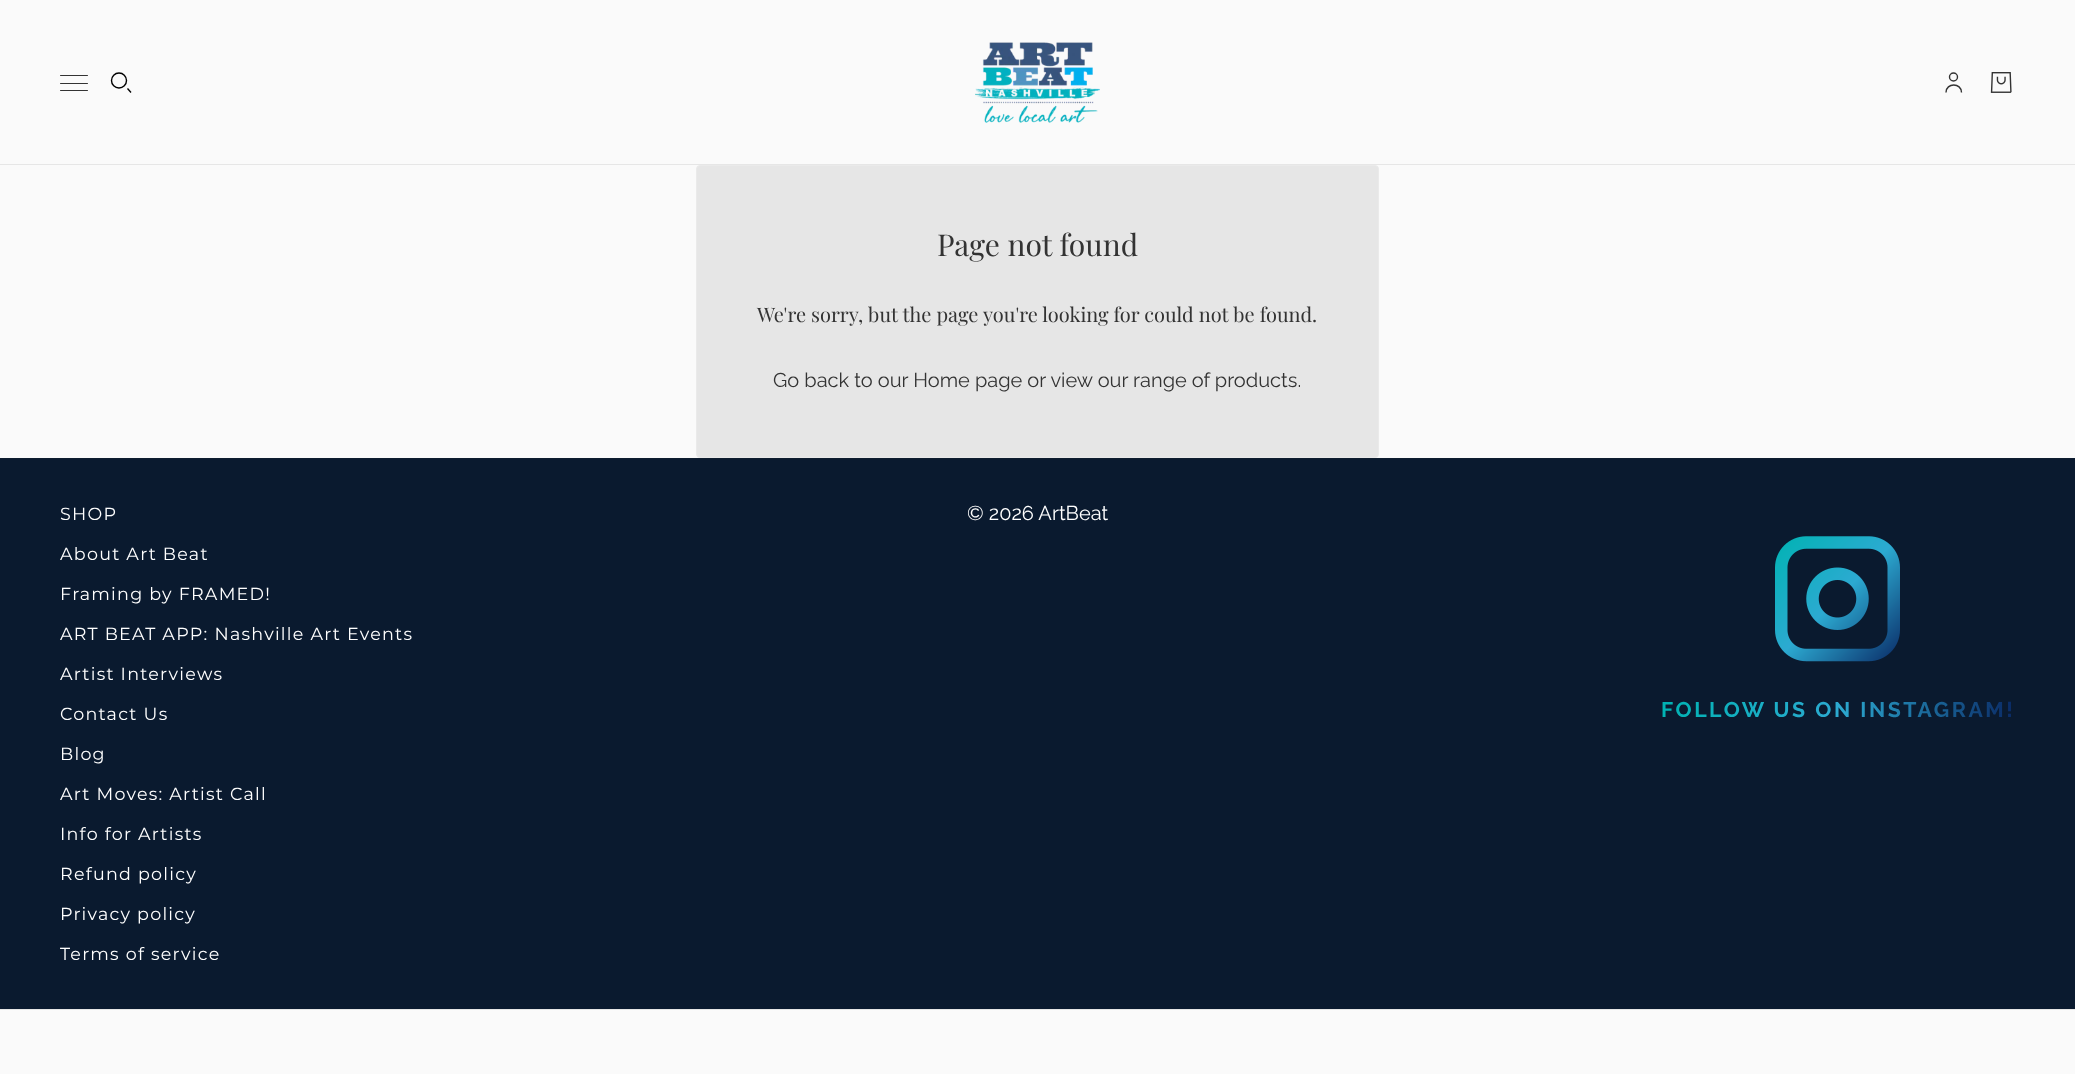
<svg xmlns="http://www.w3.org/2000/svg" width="2075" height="1074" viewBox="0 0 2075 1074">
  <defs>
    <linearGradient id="g1" gradientUnits="userSpaceOnUse" x1="1661" y1="710" x2="2015" y2="710"><stop offset="0" stop-color="#00b3b3"/><stop offset="0.5" stop-color="#2caad1"/><stop offset="1" stop-color="#0a2a66"/></linearGradient>
  </defs>
  <rect width="100%" height="100%" fill="#fafafa"/>
  <rect x="60" y="75" width="28" height="1" rx="0.5" fill="#333"/>
  <rect x="60" y="83" width="28" height="1" rx="0.5" fill="#333"/>
  <rect x="60" y="90" width="28" height="1" rx="0.5" fill="#333"/>
  <circle cx="119" cy="80.5" r="7.5" fill="none" stroke="#000" stroke-width="1.4"/>
  <path d="M127.5 88.5L131 92.5" fill="none" stroke="#000" stroke-width="1.4"/>
  <image x="975" y="42" width="125" height="81" href="img/1.png"/>
  <circle cx="1953.5" cy="77" r="4" fill="none" stroke="#333" stroke-width="1.4"/>
  <path d="M1946 92.5C1946 82.5 1961.5 82.5 1961.5 92.5" fill="none" stroke="#333" stroke-width="1.4"/>
  <image x="1990" y="72" width="22" height="21" href="img/2.png"/>
  <path d="M0 164h2075v1H0z" fill="#e6e6e6"/>
  <rect x="696.5" y="165.5" width="682" height="292" rx="3.5" fill="#e6e6e6" stroke="#eaeaea"/>
  <path d="M0 459h2075v550H0z" fill="#0a1a2f"/>
  <path d="M0 458h2075v1H0z" fill="#0e1d2f"/>
  <image x="1775" y="536" width="125" height="126" href="img/3.png"/>
  <path d="M0 1009h2075v1H0z" fill="#e6e6e6"/>
  <text x="937" y="256" font-family="Playfair Display" font-size="30" fill="#333">Page not found</text>
  <text x="757" y="322" font-family="Playfair Display" font-size="20" fill="#333">We're sorry, but the page you're looking for could not be found.</text>
  <text x="773" y="387" font-family="Raleway" font-size="20" fill="#333">Go back to our Home page or view our range of products.</text>
  <g font-family="Montserrat" font-size="17.5" letter-spacing="1.25" fill="#fff">
    <text x="60" y="520">SHOP</text>
    <text x="60" y="560">About Art Beat</text>
    <text x="60" y="600">Framing by FRAMED!</text>
    <text x="60" y="640">ART BEAT APP: Nashville Art Events</text>
    <text x="60" y="680">Artist Interviews</text>
    <text x="60" y="720">Contact Us</text>
    <text x="60" y="760">Blog</text>
    <text x="60" y="800">Art Moves: Artist Call</text>
    <text x="60" y="840">Info for Artists</text>
    <text x="60" y="880">Refund policy</text>
    <text x="60" y="920">Privacy policy</text>
    <text x="60" y="960">Terms of service</text>
  </g>
  <text x="967" y="520" font-family="Raleway" font-size="20" fill="#fff">© 2026 ArtBeat</text>
  <text x="1661" y="717" font-family="Raleway" font-size="21.25" font-weight="bold" letter-spacing="2.55" fill="url(#g1)">FOLLOW US ON INSTAGRAM!</text>
</svg>
